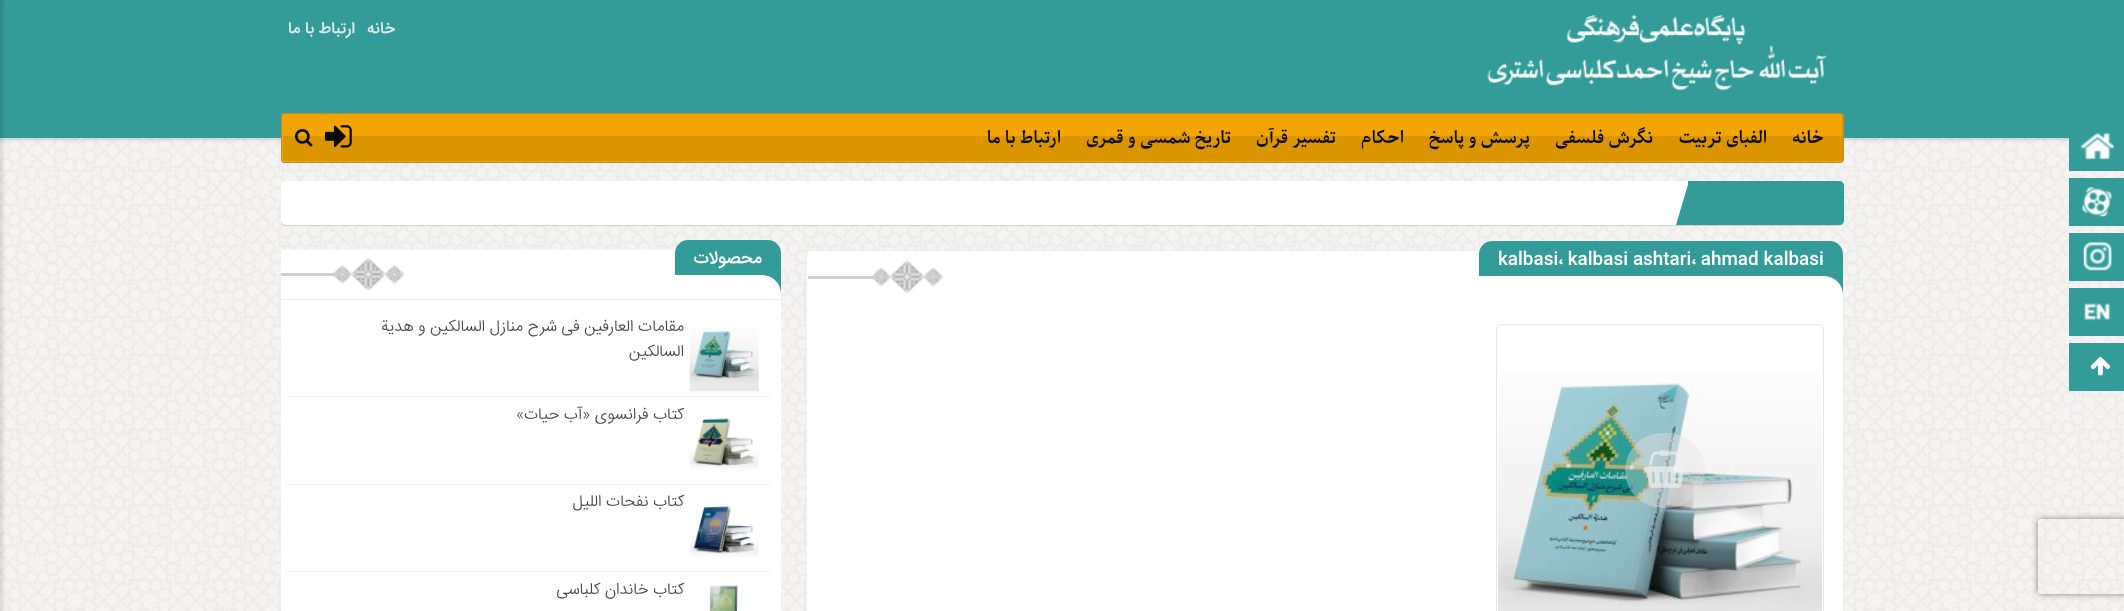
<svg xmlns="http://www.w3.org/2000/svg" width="2124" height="611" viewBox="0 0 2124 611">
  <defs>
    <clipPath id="clip1"><path d="M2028 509H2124V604H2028ZM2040.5 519H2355.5C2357 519 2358 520 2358 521.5V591.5C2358 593 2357 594 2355.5 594H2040.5C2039 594 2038 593 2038 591.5V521.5C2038 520 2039 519 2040.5 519Z" clip-rule="evenodd"/></clipPath>
  </defs>
  <rect width="100%" height="100%" fill="#fff"/>
  <image x="0" y="138" width="2124" height="473" href="img/1.png"/>
  <g clip-path="url(#clip1)">
    <rect x="2038" y="519" width="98" height="75" rx="2.5" fill="#808080" filter="blur(3px)"/>
  </g>
  <path d="M-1 -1h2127v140H-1z" fill="#00000033" filter="blur(2px)"/>
  <path d="M0 0h2124v138H0z" fill="#339c99"/>
  <image x="1487" y="14" width="340" height="77" href="img/2.png"/>
  <rect x="281" y="113" width="1563" height="50" rx="4" fill="#f2a500"/>
  <path d="M283 135V158C283 160 284 161 286 161H1840C1842 161 1843 160 1843 158V116C1843 116 1843 115 1842 114V134C1842 135 1841 136 1840 136H285Z" fill="#da9500"/>
  <rect x="281.5" y="113.5" width="1562" height="49" rx="3.5" fill="none" stroke="#78787880"/>
  <image x="325" y="125" width="27" height="23" href="img/3.png"/>
  <image x="295" y="129" width="18" height="18" href="img/4.png"/>
  <path d="M2069 138h55v33H2069z" fill="#339c99"/>
  <image x="2080" y="133" width="34" height="27" href="img/5.png"/>
  <path d="M2069 178h55v48H2069z" fill="#339c99"/>
  <image x="2081" y="187" width="31" height="30" href="img/6.png"/>
  <path d="M2069 233h55v48H2069z" fill="#339c99"/>
  <image x="2083" y="242" width="29" height="29" href="img/7.png"/>
  <path d="M2069 288h55v48H2069z" fill="#339c99"/>
  <image x="2084" y="303" width="27" height="18" href="img/8.png"/>
  <path d="M2069 343h55v48H2069z" fill="#339c99"/>
  <image x="2090" y="356" width="21" height="20" href="img/9.png"/>
  <path d="M-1 -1h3v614H-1z" fill="#00000033" filter="blur(2px)"/>
  <rect x="281" y="183" width="1563" height="43" rx="5" fill="#1c254029" filter="blur(0.5px)"/>
  <rect x="281" y="181" width="1563" height="44" rx="5" fill="#fff"/>
  <path d="M1688 181H1839C1842 181 1844 183 1844 186V220C1844 223 1842 225 1839 225H1688Z" fill="#339c99"/>
  <path d="M1688 181h1v4H1688z" fill="#319794"/>
  <path d="M1676 225L1689 181H1702L1689 225Z" fill="#339c99"/>
  <rect x="806" y="251" width="1038" height="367" rx="5" fill="#1c254029" filter="blur(0.5px)"/>
  <rect x="806.5" y="250.5" width="1037" height="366" rx="4.5" fill="#fff" stroke="#eee"/>
  <path d="M1492 241H1830C1837 241 1843 247 1843 254V295H1479V254C1479 247 1485 241 1492 241Z" fill="#339c99"/>
  <path d="M1479 276H1824C1834.5 276 1843 284.5 1843 295H1479Z" fill="#fff"/>
  <image x="871" y="260" width="73" height="34" href="img/10.png"/>
  <path d="M808 276h67v3H808z" fill="#d0d0d0"/>
  <rect x="1496.5" y="324.5" width="327" height="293" rx="5.5" fill="none" stroke="#e6e6e6"/>
  <image x="1497" y="374" width="326" height="237" href="img/11.png"/>
  <rect x="1625" y="433" width="80" height="75" rx="37.5" fill="#e6e2e269"/>
  <image x="1643" y="450" width="43" height="38" href="img/12.png"/>
  <path d="M281 250h500v361H281z" fill="#fff"/>
  <image x="332" y="257" width="73" height="35" href="img/13.png"/>
  <path d="M281 299h500v1H281z" fill="#eee"/>
  <path d="M688 240H768C775 240 781 246 781 253V294H675V253C675 246 681 240 688 240Z" fill="#339c99"/>
  <path d="M675 275H762C772.5 275 781 283.5 781 294H675Z" fill="#fff"/>
  <path d="M281 273h57v3H281z" fill="#d0d0d0"/>
  <path d="M286 396h485v1H286z" fill="#f5f5f5"/>
  <image x="690" y="328" width="69" height="64" href="img/14.png"/>
  <path d="M286 484h485v1H286z" fill="#f5f5f5"/>
  <image x="690" y="418" width="69" height="52" href="img/15.png"/>
  <path d="M286 571h485v1H286z" fill="#f5f5f5"/>
  <image x="690" y="506" width="69" height="51" href="img/16.png"/>
  <image x="709" y="585" width="29" height="26" href="img/17.png"/>
  <g font-family="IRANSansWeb" font-size="16.25" font-weight="500" direction="rtl" fill="#dee9e8">
    <text x="395" y="33">خانه</text>
    <text x="355" y="33">ارتباط با ما</text>
  </g>
  <g font-family="Parastoo" font-size="17.5" font-weight="bold" direction="rtl" fill="#0a0a0a">
    <text x="1824" y="143">خانه</text>
    <text x="1767" y="143">الفبای تربیت</text>
    <text x="1653" y="143">نگرش فلسفی</text>
    <text x="1530" y="143">پرسش و پاسخ</text>
    <text x="1404" y="143">احکام</text>
    <text x="1336" y="143">تفسیر قرآن</text>
    <text x="1231" y="143">تاریخ شمسی و قمری</text>
    <text x="1061" y="143">ارتباط با ما</text>
  </g>
  <text x="1498" y="264" font-family="IRANSansWeb" font-size="17.5" font-weight="500" fill="#fff">kalbasi، kalbasi ashtari، ahmad kalbasi</text>
  <text x="762" y="263" font-family="IRANSansWeb" font-size="17.5" font-weight="500" direction="rtl" fill="#fff">محصولات</text>
  <g font-family="IRANSansWeb" font-size="16.25" font-weight="300" direction="rtl" fill="#444">
    <text x="684" y="331">مقامات العارفین فی شرح منازل السالکین و هدیة</text>
    <text x="684" y="356">السالکین</text>
    <text x="684" y="419">کتاب فرانسوی «آب حیات»</text>
    <text x="684" y="506">کتاب نفحات اللیل</text>
    <text x="684" y="594">کتاب خاندان کلباسی</text>
  </g>
</svg>
